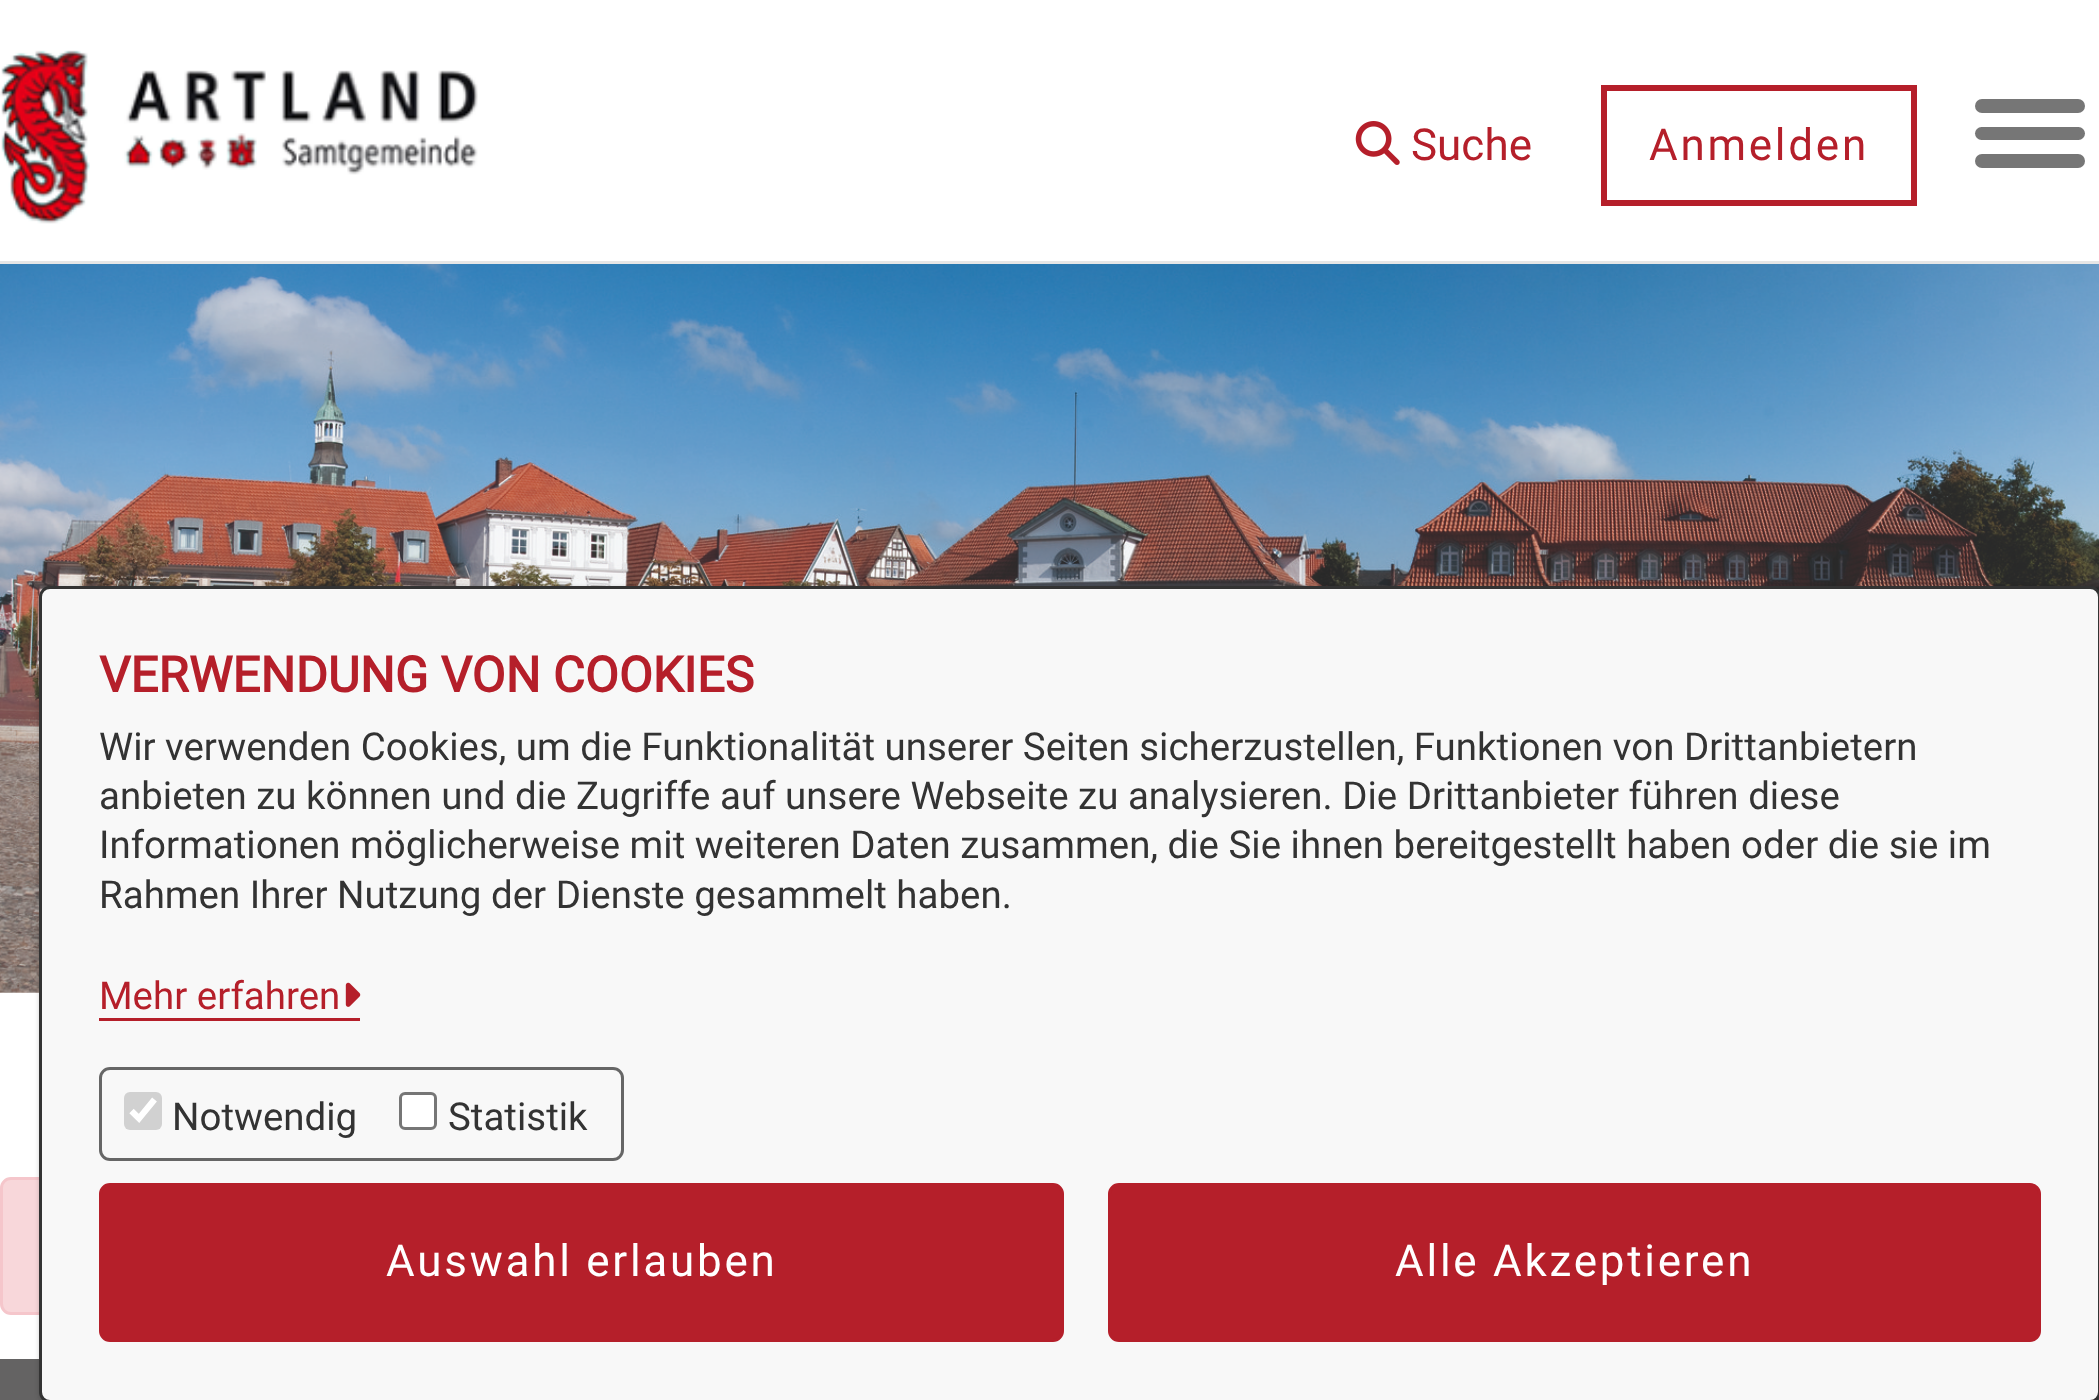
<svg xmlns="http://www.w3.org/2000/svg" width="2099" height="1400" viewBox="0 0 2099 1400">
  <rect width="100%" height="100%" fill="#fff"/>
  <path d="M0 261h2099v3H0z" fill="#e6e6e6"/>
  <image x="0" y="50" width="478" height="174" href="img/1.png"/>
  <image x="1355" y="121" width="45" height="44" href="img/2.png"/>
  <path d="M1604 88h310v115H1604z" fill="none" stroke="#b51f2a" stroke-width="6"/>
  <rect x="1975" y="127" width="110" height="13" rx="6.5" fill="#767676"/>
  <rect x="1975" y="99" width="110" height="14" rx="7" fill="#767676"/>
  <rect x="1975" y="154" width="110" height="14" rx="7" fill="#767676"/>
  <image x="0" y="264" width="2099" height="729" href="img/3.png"/>
  <rect x="1.5" y="1178.5" width="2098" height="135" rx="9.5" fill="#f8d7da" stroke="#f5c6cb" stroke-width="3"/>
  <path d="M0 1359h2099v41H0z" fill="#646363"/>
  <rect x="41" y="589" width="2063" height="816" rx="11" fill="#00000054" filter="blur(3px)"/>
  <rect x="40.5" y="587.5" width="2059" height="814" rx="9.5" fill="#f8f8f8" stroke="#333" stroke-width="3"/>
  <path d="M99 1018h261v3H99z" fill="#b51f2a"/>
  <image x="345" y="982" width="16" height="25" href="img/4.png"/>
  <rect x="100.5" y="1068.5" width="522" height="91" rx="9.5" fill="none" stroke="#666" stroke-width="3"/>
  <rect x="124" y="1092" width="38" height="38" rx="6" fill="#d1d1d1"/>
  <path d="M131.5 1111L139 1118.5L154.5 1099.5" fill="none" stroke="#fff" stroke-width="6.2"/>
  <rect x="400.5" y="1093.5" width="35" height="35" rx="4.5" fill="#fff" stroke="#767676" stroke-width="3"/>
  <rect x="100.5" y="1184.5" width="962" height="156" rx="9.5" fill="#b51f2a" stroke="#b51f2a" stroke-width="3"/>
  <rect x="1109.5" y="1184.5" width="930" height="156" rx="9.5" fill="#b51f2a" stroke="#b51f2a" stroke-width="3"/>
  <text x="1411" y="160" font-family="Roboto" font-size="44" fill="#b51f2a">Suche</text>
  <text x="1649" y="160" font-family="Roboto" font-size="44" letter-spacing="2.75" fill="#b51f2a">Anmelden</text>
  <text x="99" y="692" font-family="Roboto" font-size="49.25" font-weight="bold" fill="#b51f2a">VERWENDUNG VON COOKIES</text>
  <g font-family="Roboto" font-size="38.5" fill="#333">
    <text x="99" y="760">Wir verwenden Cookies, um die Funktionalität unserer Seiten sicherzustellen, Funktionen von Drittanbietern</text>
    <text x="99" y="809">anbieten zu können und die Zugriffe auf unsere Webseite zu analysieren. Die Drittanbieter führen diese</text>
    <text x="99" y="858">Informationen möglicherweise mit weiteren Daten zusammen, die Sie ihnen bereitgestellt haben oder die sie im</text>
    <text x="99" y="908">Rahmen Ihrer Nutzung der Dienste gesammelt haben.</text>
  </g>
  <text x="99" y="1009" font-family="Roboto" font-size="38.5" fill="#b51f2a">Mehr erfahren</text>
  <g font-family="Roboto" font-size="38.5" fill="#333">
    <text x="172" y="1130">Notwendig</text>
    <text x="448" y="1130">Statistik</text>
  </g>
  <g font-family="Roboto" font-size="44" letter-spacing="2.75" fill="#fff">
    <text x="386" y="1276">Auswahl erlauben</text>
    <text x="1395" y="1276">Alle Akzeptieren</text>
  </g>
</svg>
